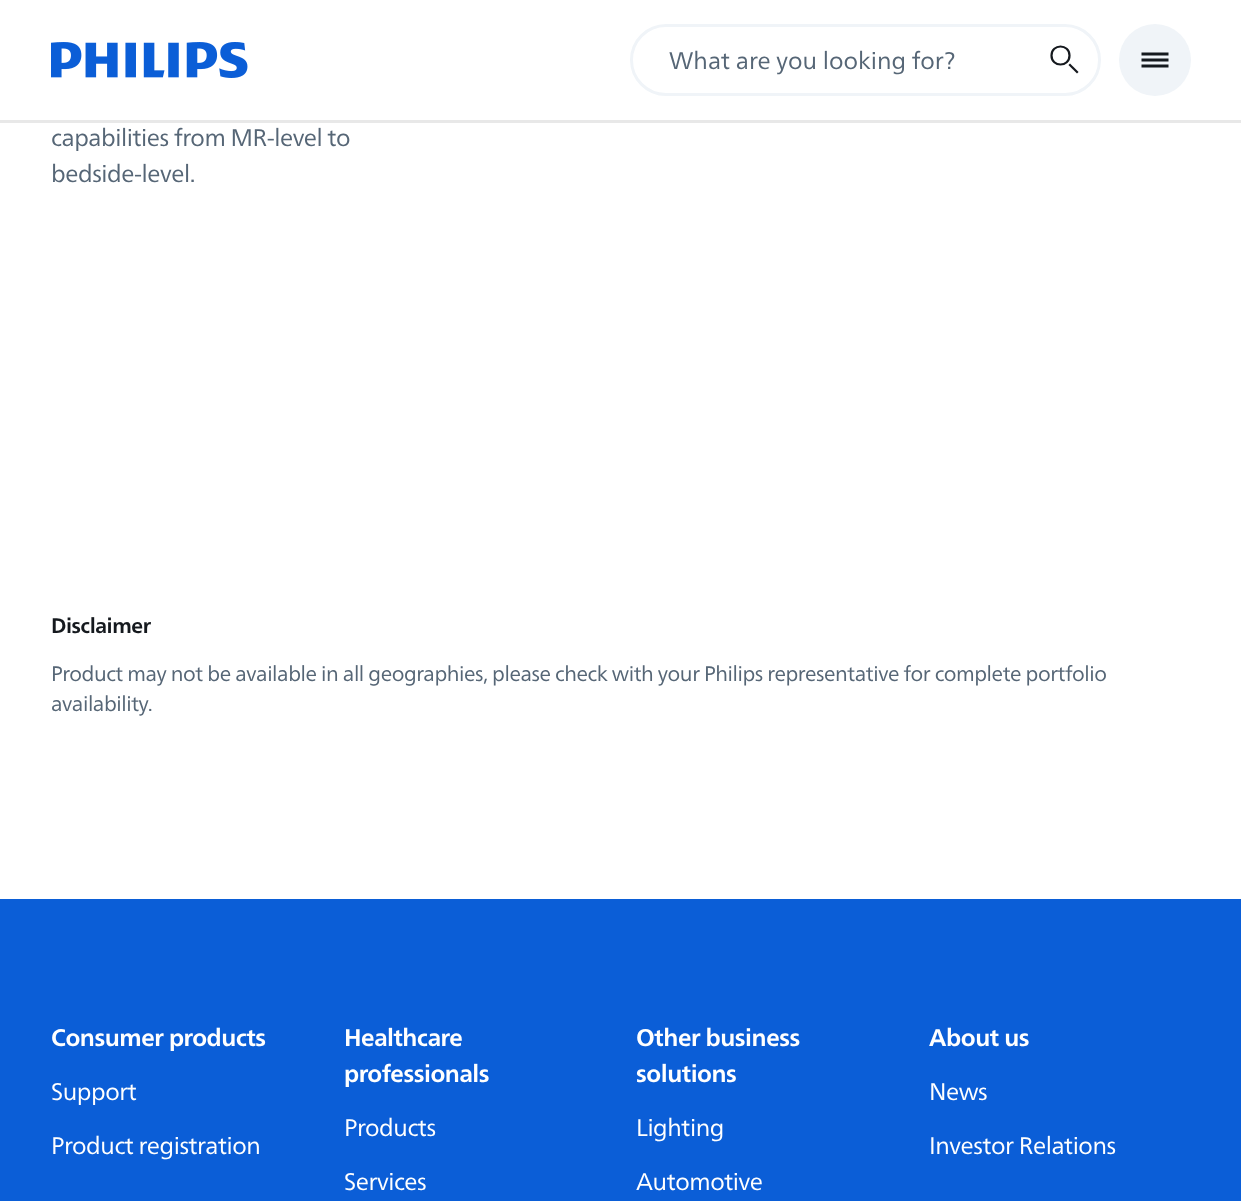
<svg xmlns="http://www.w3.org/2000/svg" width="1241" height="1201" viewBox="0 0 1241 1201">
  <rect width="100%" height="100%" fill="#fff"/>
  <path d="M0 120h1241v3H0z" fill="#e8e8e8"/>
  <image x="51" y="42" width="197" height="36" href="img/1.png"/>
  <rect x="631.5" y="25.5" width="468" height="69" rx="34.5" fill="none" stroke="#f0f4f8" stroke-width="3"/>
  <path d="M1070 65L1077 72" fill="none" stroke="#15191e" stroke-width="2.2" stroke-linecap="square"/>
  <path d="M1069.5 55.5C1069.5 67.5 1051.5 67.5 1051.5 55.5C1051.5 43.5 1069.5 43.5 1069.5 55.5Z" fill="none" stroke="#15191e" stroke-width="2.2"/>
  <circle cx="1155" cy="60" r="36" fill="#f0f4f8"/>
  <path d="M1143 60H1167M1143 54H1167M1143 66H1167" fill="none" stroke="#15191e" stroke-width="3" stroke-linecap="square"/>
  <path d="M0 899h1241v302H0z" fill="#0b5ed7"/>
  <text x="669" y="69" font-family="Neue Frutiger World" font-size="24" fill="#566676">What are you looking for?</text>
  <g font-family="Neue Frutiger World" font-size="24" letter-spacing="-0.45" fill="#566676">
    <text x="51" y="146">capabilities from MR-level to</text>
    <text x="51" y="182">bedside-level.</text>
  </g>
  <text x="51" y="633" font-family="Neue Frutiger World" font-size="21" font-weight="bold" letter-spacing="-0.45" fill="#15191e">Disclaimer</text>
  <g font-family="Neue Frutiger World" font-size="21" letter-spacing="-0.45" fill="#566676">
    <text x="51" y="681">Product may not be available in all geographies, please check with your Philips representative for complete portfolio</text>
    <text x="51" y="711">availability.</text>
  </g>
  <text x="51" y="1046" font-family="Neue Frutiger World" font-size="24" font-weight="bold" letter-spacing="-0.45" fill="#fff">Consumer products</text>
  <g font-family="Neue Frutiger World" font-size="24" letter-spacing="-0.45" fill="#fff">
    <text x="51" y="1100">Support</text>
    <text x="51" y="1154">Product registration</text>
  </g>
  <g font-family="Neue Frutiger World" font-size="24" font-weight="bold" letter-spacing="-0.45" fill="#fff">
    <text x="344" y="1046">Healthcare</text>
    <text x="344" y="1082">professionals</text>
  </g>
  <g font-family="Neue Frutiger World" font-size="24" letter-spacing="-0.45" fill="#fff">
    <text x="344" y="1136">Products</text>
    <text x="344" y="1190">Services</text>
  </g>
  <g font-family="Neue Frutiger World" font-size="24" font-weight="bold" letter-spacing="-0.45" fill="#fff">
    <text x="636" y="1046">Other business</text>
    <text x="636" y="1082">solutions</text>
  </g>
  <g font-family="Neue Frutiger World" font-size="24" letter-spacing="-0.45" fill="#fff">
    <text x="636" y="1136">Lighting</text>
    <text x="636" y="1190">Automotive</text>
  </g>
  <text x="929" y="1046" font-family="Neue Frutiger World" font-size="24" font-weight="bold" letter-spacing="-0.45" fill="#fff">About us</text>
  <g font-family="Neue Frutiger World" font-size="24" letter-spacing="-0.45" fill="#fff">
    <text x="929" y="1100">News</text>
    <text x="929" y="1154">Investor Relations</text>
  </g>
</svg>
